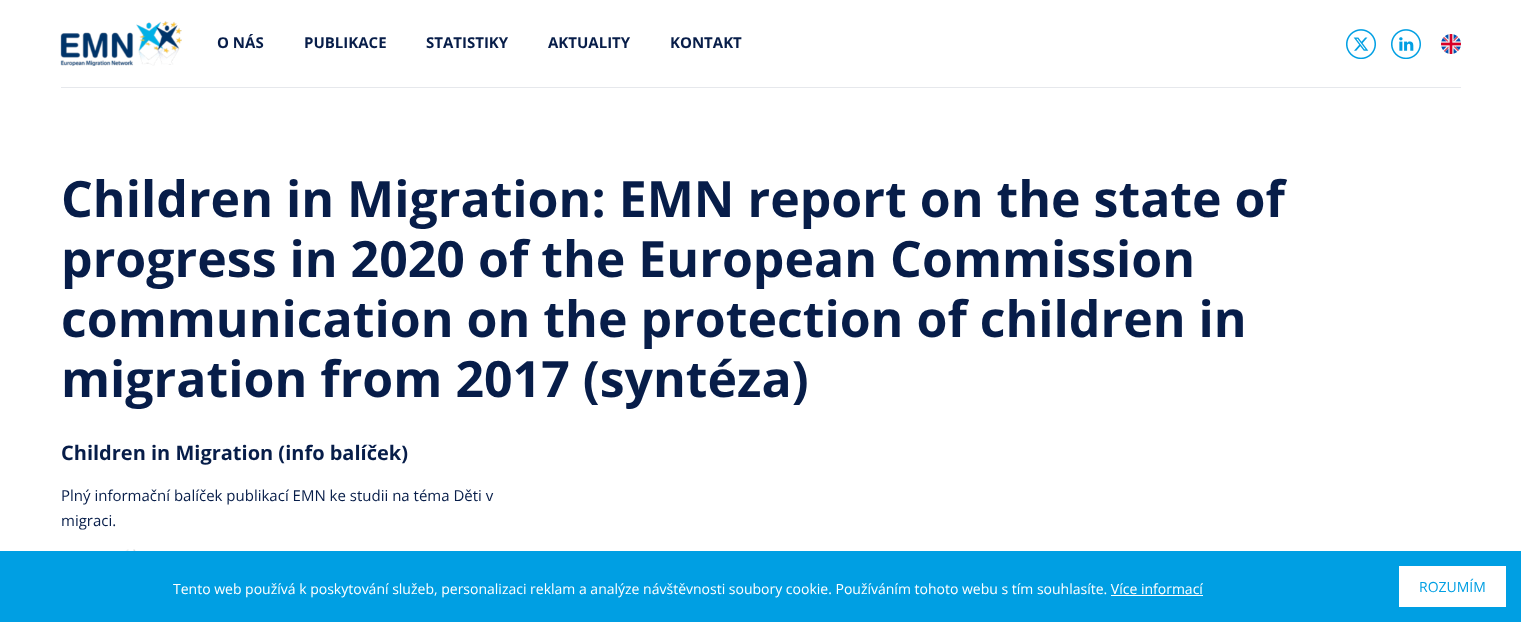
<svg xmlns="http://www.w3.org/2000/svg" width="1521" height="622" viewBox="0 0 1521 622">
  <rect width="100%" height="100%" fill="#fff"/>
  <path d="M61 87h1400v1H61z" fill="#e6e8ec"/>
  <image x="60" y="21" width="122" height="45" href="img/1.png"/>
  <image x="1346" y="29" width="30" height="30" href="img/2.png"/>
  <image x="1391" y="29" width="30" height="30" href="img/3.png"/>
  <image x="1441" y="34" width="20" height="20" href="img/4.png"/>
  <image x="76" y="549" width="101" height="2" href="img/5.png"/>
  <path d="M0 551h1521v71H0z" fill="#009fe3"/>
  <path d="M1111 595h92v1H1111z" fill="#fff"/>
  <path d="M1399 566h107v41H1399z" fill="#fff"/>
  <g font-family="Open Sans" font-size="15" font-weight="bold" fill="#071d49">
    <text x="217" y="48">O NÁS</text>
    <text x="304" y="48">PUBLIKACE</text>
    <text x="426" y="48">STATISTIKY</text>
    <text x="548" y="48">AKTUALITY</text>
    <text x="670" y="48">KONTAKT</text>
  </g>
  <g font-family="Open Sans" font-size="50" font-weight="bold" fill="#071d49">
    <text x="61" y="217">Children in Migration: EMN report on the state of</text>
    <text x="61" y="277">progress in 2020 of the European Commission</text>
    <text x="61" y="337">communication on the protection of children in</text>
    <text x="61" y="397">migration from 2017 (syntéza)</text>
  </g>
  <text x="61" y="460" font-family="Open Sans" font-size="20" font-weight="bold" fill="#071d49">Children in Migration (info balíček)</text>
  <g font-family="Open Sans" font-size="15" fill="#071d49">
    <text x="61" y="501">Plný informační balíček publikací EMN ke studii na téma Děti v</text>
    <text x="61" y="526">migraci.</text>
  </g>
  <text x="173" y="594" font-family="Open Sans" font-size="14" fill="#fff">Tento web používá k poskytování služeb, personalizaci reklam a analýze návštěvnosti soubory cookie. Používáním tohoto webu s tím souhlasíte. Více informací</text>
  <text x="1419" y="592" font-family="Open Sans" font-size="14" fill="#009fe3">ROZUMÍM</text>
</svg>
